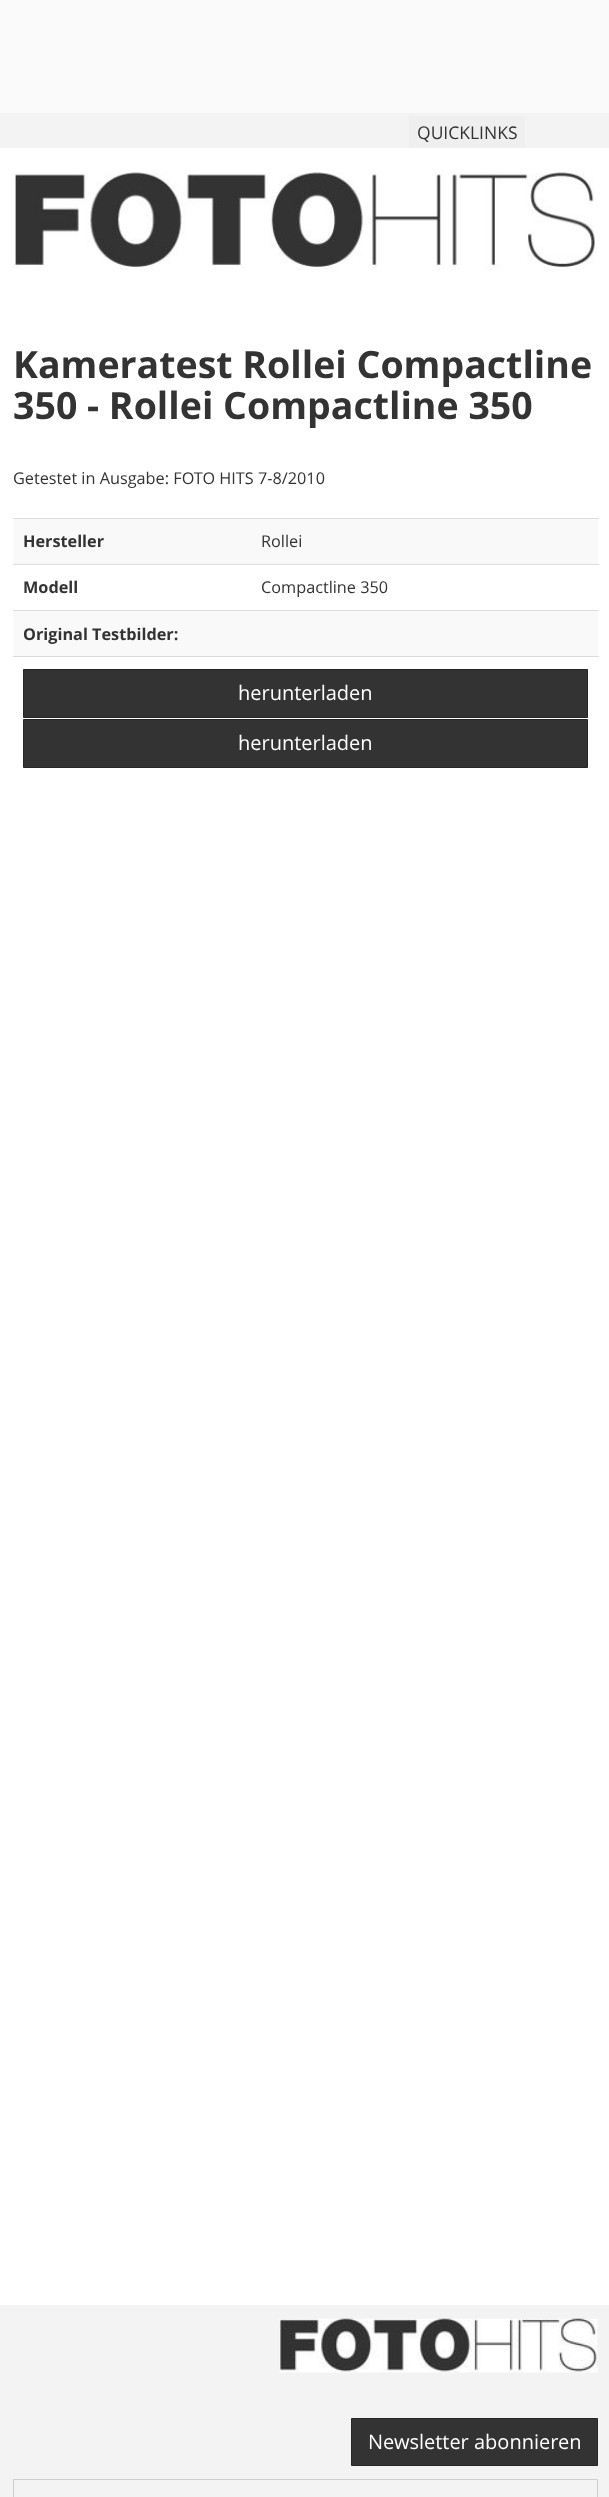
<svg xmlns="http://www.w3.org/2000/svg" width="609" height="2497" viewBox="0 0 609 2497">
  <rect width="100%" height="100%" fill="#fafafa"/>
  <path d="M0 148h609v2157H0z" fill="#fff"/>
  <path d="M0 113h609v35H0z" fill="#f3f3f3"/>
  <path d="M409 116h116v32H409z" fill="#efefef"/>
  <image x="12" y="172" width="586" height="98" href="img/1.png"/>
  <path d="M13 519h585v45H13z" fill="#f9f9f9"/>
  <path d="M13 518h586v1H13z" fill="#ddd"/>
  <path d="M13 564h586v1H13z" fill="#ddd"/>
  <path d="M13 611h585v45H13z" fill="#f9f9f9"/>
  <path d="M13 610h586v1H13z" fill="#ddd"/>
  <path d="M13 656h586v1H13z" fill="#ddd"/>
  <path d="M23.5 669.5h564v48H23.5z" fill="#333" stroke="#262626"/>
  <path d="M23.5 719.5h564v48H23.5z" fill="#333" stroke="#262626"/>
  <path d="M0 2305h609v192H0z" fill="#f3f3f3"/>
  <image x="279" y="2318" width="319" height="55" href="img/2.png"/>
  <path d="M351.5 2418.5h246v47H351.5z" fill="#333" stroke="#262626"/>
  <path d="M13.5 2479.5h584v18H13.5z" fill="none" stroke="#cecece"/>
  <text x="417" y="139" font-family="Open Sans" font-size="17.5" fill="#333">QUICKLINKS</text>
  <g font-family="Open Sans" font-size="37.5" font-weight="bold" fill="#333">
    <text x="13" y="378">Kameratest Rollei Compactline</text>
    <text x="13" y="419">350 - Rollei Compactline 350</text>
  </g>
  <text x="13" y="484" font-family="Open Sans" font-size="16.25" fill="#333">Getestet in Ausgabe: FOTO HITS 7-8/2010</text>
  <text x="23" y="547" font-family="Open Sans" font-size="16.25" font-weight="bold" fill="#333">Hersteller</text>
  <text x="261" y="547" font-family="Open Sans" font-size="16.25" fill="#333">Rollei</text>
  <text x="23" y="593" font-family="Open Sans" font-size="16.25" font-weight="bold" fill="#333">Modell</text>
  <text x="261" y="593" font-family="Open Sans" font-size="16.25" fill="#333">Compactline 350</text>
  <text x="23" y="640" font-family="Open Sans" font-size="16.25" font-weight="bold" fill="#333">Original Testbilder:</text>
  <g font-family="Open Sans" font-size="20" fill="#fff">
    <text x="238" y="700">herunterladen</text>
    <text x="238" y="750">herunterladen</text>
    <text x="368" y="2449">Newsletter abonnieren</text>
  </g>
</svg>
